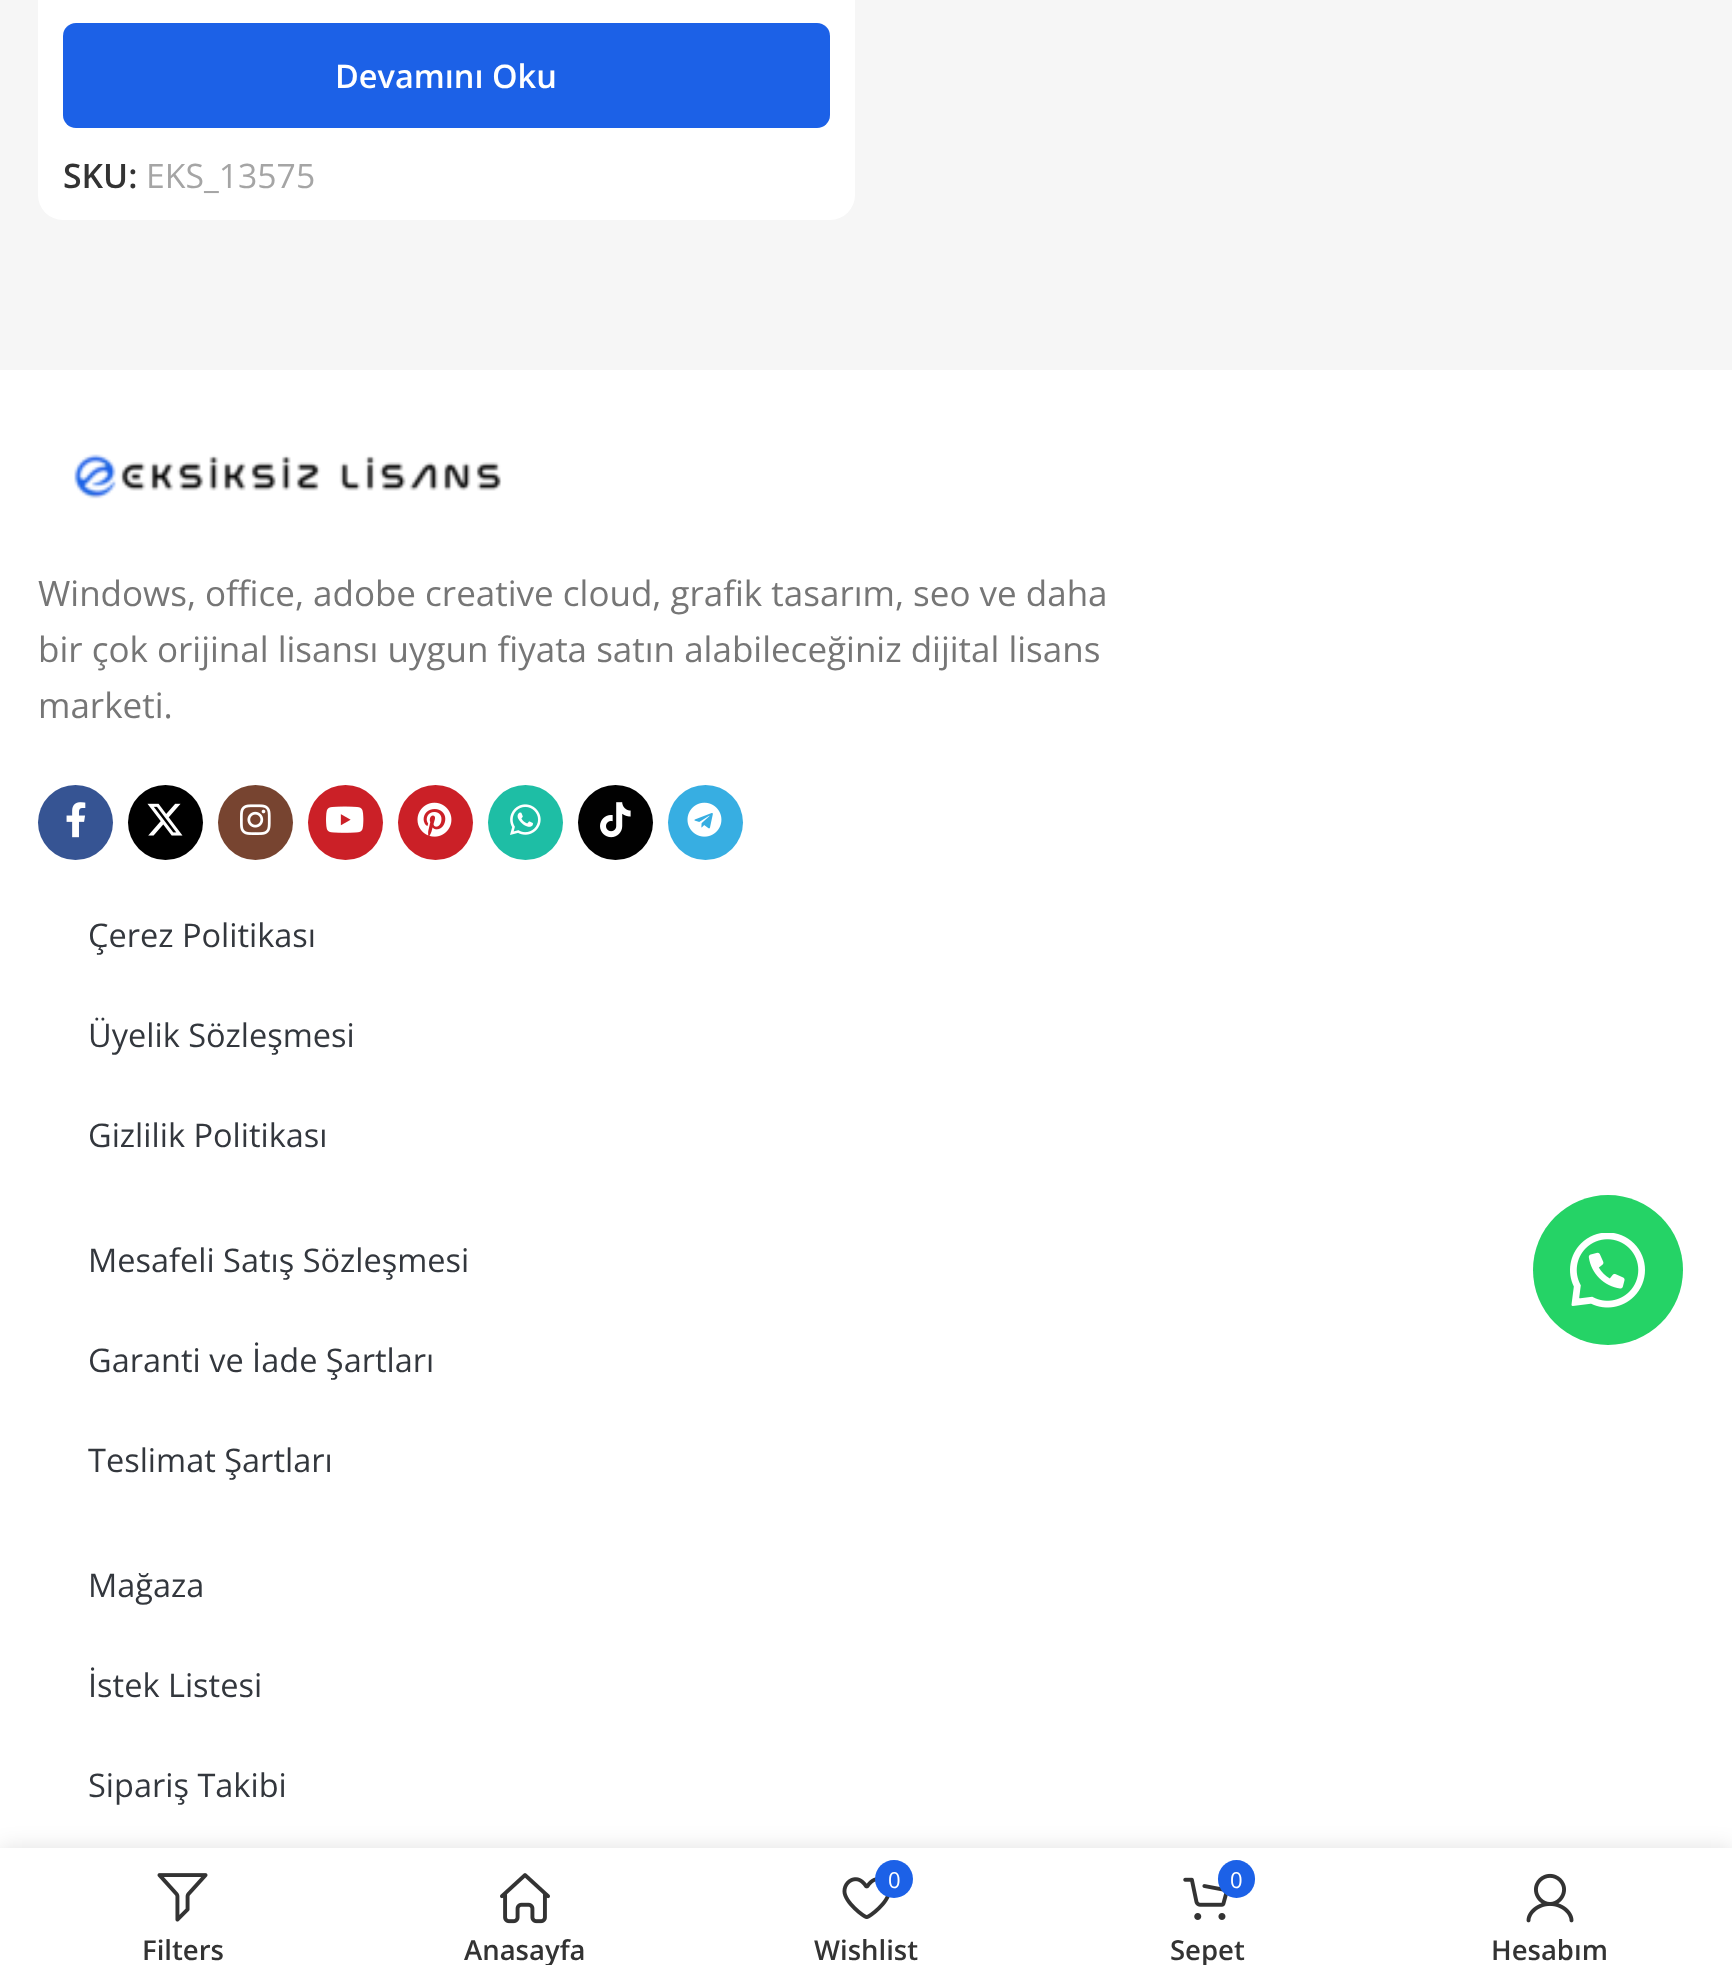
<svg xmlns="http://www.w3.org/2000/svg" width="1732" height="1985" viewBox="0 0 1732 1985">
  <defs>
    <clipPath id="clip1"><path d="M380 1933h290v32H380z"/></clipPath>
    <clipPath id="clip2"><path d="M1063 1933h290v32H1063z"/></clipPath>
  </defs>
  <rect width="100%" height="100%" fill="#fff"/>
  <path d="M0 0h1732v370H0z" fill="#f6f6f6"/>
  <rect x="38" y="-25" width="817" height="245" rx="25" fill="#fff"/>
  <rect x="63" y="23" width="767" height="105" rx="13" fill="#1c61e7"/>
  <image x="74" y="454" width="428" height="45" href="img/1.png"/>
  <circle cx="75.5" cy="822.5" r="37.5" fill="#365493"/>
  <image x="66" y="802" width="20" height="36" href="img/2.png"/>
  <circle cx="165.5" cy="822.5" r="37.5" fill="#000"/>
  <image x="147" y="803" width="36" height="33" href="img/3.png"/>
  <circle cx="255.5" cy="822.5" r="37.5" fill="#774430"/>
  <image x="240" y="804" width="31" height="31" href="img/4.png"/>
  <circle cx="345.5" cy="822.5" r="37.5" fill="#cb2027"/>
  <image x="326" y="806" width="38" height="27" href="img/5.png"/>
  <circle cx="435.5" cy="822.5" r="37.5" fill="#cb2027"/>
  <image x="417" y="802" width="35" height="35" href="img/6.png"/>
  <circle cx="525.5" cy="822.5" r="37.5" fill="#1ebea5"/>
  <image x="510" y="804" width="31" height="31" href="img/7.png"/>
  <circle cx="615.5" cy="822.5" r="37.5" fill="#010101"/>
  <image x="600" y="802" width="31" height="36" href="img/8.png"/>
  <circle cx="705.5" cy="822.5" r="37.5" fill="#37aee2"/>
  <image x="687" y="802" width="35" height="35" href="img/9.png"/>
  <circle cx="1608" cy="1270" r="75" fill="#25d366"/>
  <image x="1570" y="1233" width="75" height="75" href="img/10.png"/>
  <path d="M0 1848h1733v137H0z" fill="#0000001f" filter="blur(11px)"/>
  <path d="M0 1848h1732v137H0z" fill="#fff"/>
  <image x="157" y="1873" width="51" height="49" href="img/11.png"/>
  <image x="500" y="1873" width="50" height="51" href="img/12.png"/>
  <image x="842" y="1877" width="48" height="42" href="img/13.png"/>
  <circle cx="894" cy="1879" r="19" fill="#1c61e7"/>
  <image x="1183" y="1877" width="45" height="43" href="img/14.png"/>
  <rect x="1218" y="1860" width="37" height="38" rx="18.5" fill="#1c61e7"/>
  <image x="1526" y="1873" width="48" height="50" href="img/15.png"/>
  <text x="335" y="88" font-family="Open Sans" font-size="32.5" font-weight="600" fill="#fff">Devamını Oku</text>
  <text x="63" y="188" font-family="Open Sans" font-size="33.75" font-weight="600" fill="#333">SKU:</text>
  <text x="146" y="188" font-family="Open Sans" font-size="33.75" fill="#a5a5a5">EKS_13575</text>
  <g font-family="Open Sans" font-size="35" fill="#767676">
    <text x="38" y="606">Windows, office, adobe creative cloud, grafik tasarım, seo ve daha</text>
    <text x="38" y="662">bir çok orijinal lisansı uygun fiyata satın alabileceğiniz dijital lisans</text>
    <text x="38" y="718">marketi.</text>
  </g>
  <g font-family="Open Sans" font-size="32.5" fill="#33373d">
    <text x="88" y="947">Çerez Politikası</text>
    <text x="88" y="1047">Üyelik Sözleşmesi</text>
    <text x="88" y="1147">Gizlilik Politikası</text>
    <text x="88" y="1272">Mesafeli Satış Sözleşmesi</text>
    <text x="88" y="1372">Garanti ve İade Şartları</text>
    <text x="88" y="1472">Teslimat Şartları</text>
    <text x="88" y="1597">Mağaza</text>
    <text x="88" y="1697">İstek Listesi</text>
    <text x="88" y="1797">Sipariş Takibi</text>
  </g>
  <text x="142" y="1960" font-family="Open Sans" font-size="27.5" font-weight="600" fill="#333">Filters</text>
  <g clip-path="url(#clip1)">
    <text x="464" y="1960" font-family="Open Sans" font-size="27.5" font-weight="600" fill="#333">Anasayfa</text>
  </g>
  <text x="888" y="1888" font-family="Open Sans" font-size="22" fill="#fff">0</text>
  <text x="814" y="1960" font-family="Open Sans" font-size="27.5" font-weight="600" fill="#333">Wishlist</text>
  <text x="1230" y="1888" font-family="Open Sans" font-size="22" fill="#fff">0</text>
  <g clip-path="url(#clip2)">
    <text x="1170" y="1960" font-family="Open Sans" font-size="27.5" font-weight="600" fill="#333">Sepet</text>
  </g>
  <text x="1491" y="1960" font-family="Open Sans" font-size="27.5" font-weight="600" fill="#333">Hesabım</text>
</svg>
